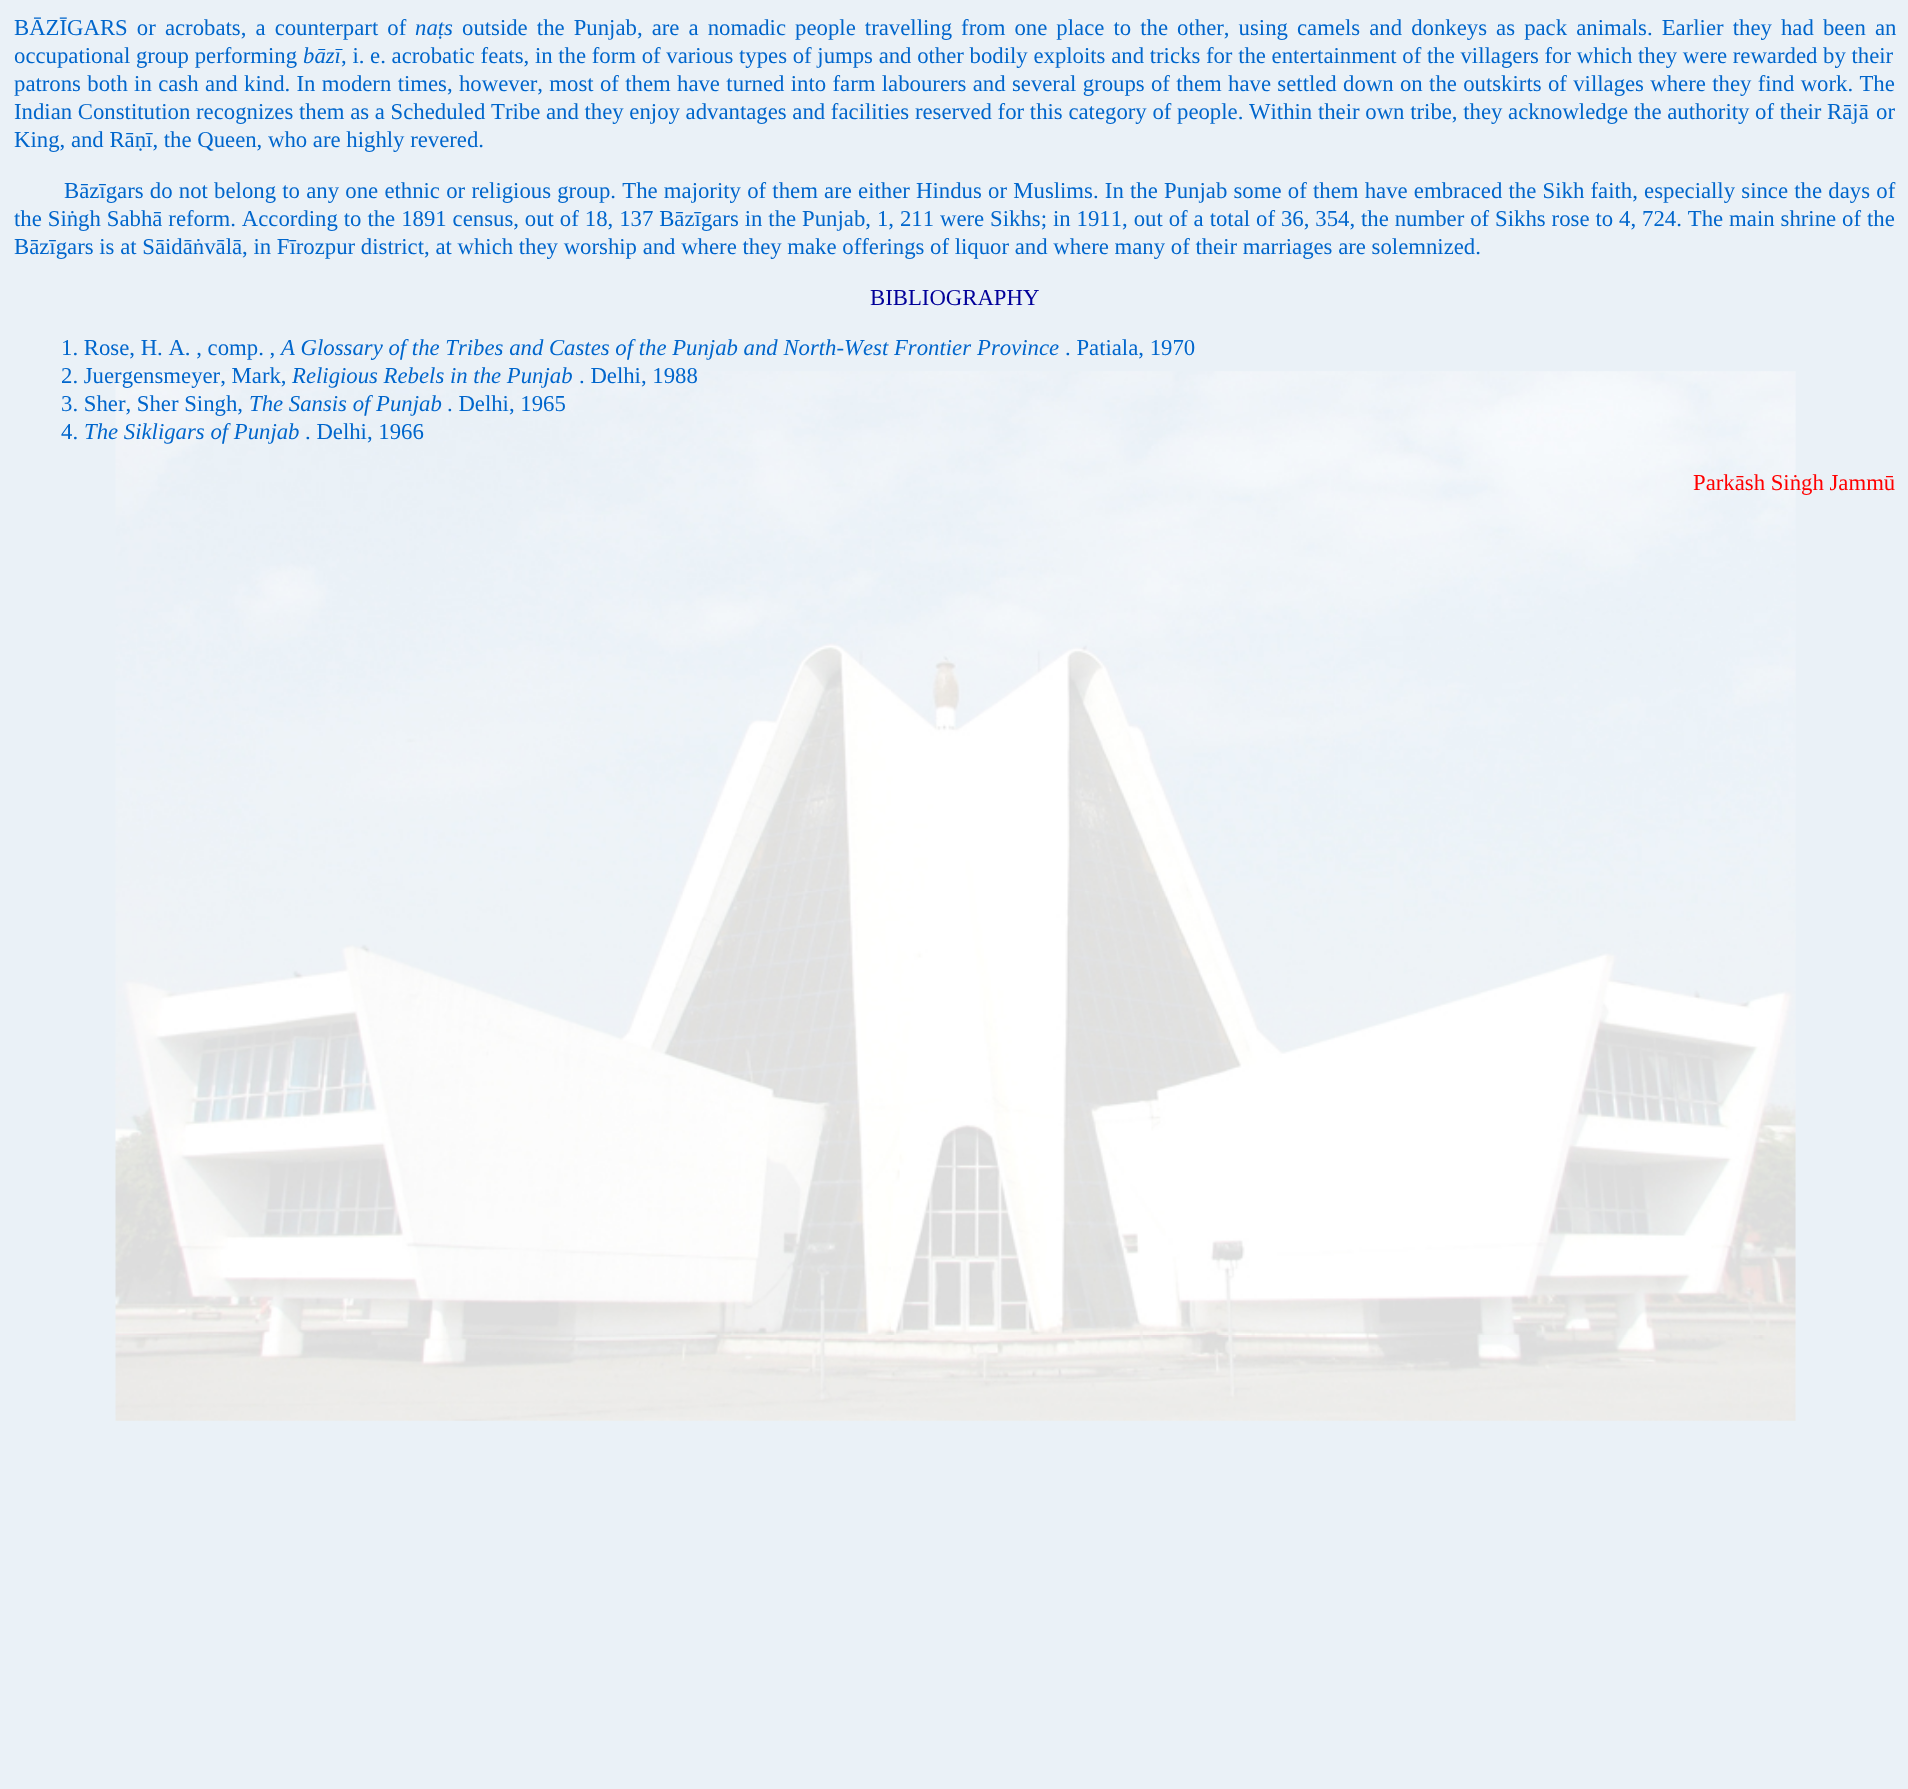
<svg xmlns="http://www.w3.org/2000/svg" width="1908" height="1789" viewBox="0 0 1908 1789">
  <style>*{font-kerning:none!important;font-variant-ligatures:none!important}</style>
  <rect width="100%" height="100%" fill="#eaf1f7"/>
  <image x="115" y="371" width="1681" height="1050" href="img/1.png"/>
  <text x="14" y="35" word-spacing="3.4" font-family="Liberation Serif" font-size="22.75" fill="#06c">BĀZĪGARS or acrobats, a counterpart of</text>
  <text x="415" y="35" font-family="Liberation Serif" font-size="22.75" font-style="italic" fill="#06c">naṭs</text>
  <g font-family="Liberation Serif" font-size="22.75" fill="#06c">
    <text x="462" y="35" word-spacing="3.4">outside the Punjab, are a nomadic people travelling from one place to the other, using camels and donkeys as pack animals. Earlier they had been an</text>
    <text x="14" y="63">occupational group performing</text>
  </g>
  <text x="303" y="63" font-family="Liberation Serif" font-size="22.75" font-style="italic" fill="#06c">bāzī</text>
  <g font-family="Liberation Serif" font-size="22.75" fill="#06c">
    <text x="341" y="63">, i. e. acrobatic feats, in the form of various types of jumps and other bodily exploits and tricks for the entertainment of the villagers for which they were rewarded by their</text>
    <text x="14" y="91" word-spacing="0.65">patrons both in cash and kind. In modern times, however, most of them have turned into farm labourers and several groups of them have settled down on the outskirts of villages where they find work. The</text>
    <text x="14" y="119">Indian Constitution recognizes them as a Scheduled Tribe and they enjoy advantages and facilities reserved for this category of people. Within their own tribe, they acknowledge the authority of their Rājā</text>
    <text x="1876" y="119">or</text>
    <text x="14" y="147">King, and Rāṇī, the Queen, who are highly revered.</text>
    <text x="64" y="198" word-spacing="0.55">Bāzīgars do not belong to any one ethnic or religious group. The majority of them are either Hindus or Muslims. In the Punjab some of them have embraced the Sikh faith, especially since the days of</text>
    <text x="14" y="226" word-spacing="0.25">the Siṅgh Sabhā reform. According to the 1891 census, out of 18, 137 Bāzīgars in the Punjab, 1, 211 were Sikhs; in 1911, out of a total of 36, 354, the number of Sikhs rose to 4, 724. The main shrine of the</text>
    <text x="14" y="254">Bāzīgars is at Sāidāṅvālā, in Fīrozpur district, at which they worship and where they make offerings of liquor and where many of their marriages are solemnized.</text>
  </g>
  <text x="870" y="305" font-family="Liberation Serif" font-size="22.75" fill="#009">BIBLIOGRAPHY</text>
  <text x="61" y="355" font-family="Liberation Serif" font-size="22.75" fill="#06c">1. Rose, H. A. , comp. ,</text>
  <text x="281" y="355" font-family="Liberation Serif" font-size="22.75" font-style="italic" fill="#06c">A Glossary of the Tribes and Castes of the Punjab and North-West Frontier</text>
  <text x="977" y="355" font-family="Liberation Serif" font-size="22.75" font-style="italic" fill="#06c">Province</text>
  <g font-family="Liberation Serif" font-size="22.75" fill="#06c">
    <text x="1065" y="355">. Patiala, 1970</text>
    <text x="61" y="383">2. Juergensmeyer, Mark,</text>
  </g>
  <text x="292" y="383" font-family="Liberation Serif" font-size="22.75" font-style="italic" fill="#06c">Religious Rebels in the Punjab</text>
  <g font-family="Liberation Serif" font-size="22.75" fill="#06c">
    <text x="579" y="383">. Delhi, 1988</text>
    <text x="61" y="411">3. Sher, Sher Singh,</text>
  </g>
  <text x="249" y="411" font-family="Liberation Serif" font-size="22.75" font-style="italic" fill="#06c">The Sansis of Punjab</text>
  <g font-family="Liberation Serif" font-size="22.75" fill="#06c">
    <text x="447" y="411">. Delhi, 1965</text>
    <text x="61" y="439">4.</text>
  </g>
  <text x="84" y="439" font-family="Liberation Serif" font-size="22.75" font-style="italic" fill="#06c">The Sikligars of Punjab</text>
  <text x="305" y="439" font-family="Liberation Serif" font-size="22.75" fill="#06c">. Delhi, 1966</text>
  <text x="1693" y="490" font-family="Liberation Serif" font-size="22.75" fill="#f00">Parkāsh Siṅgh Jammū</text>
</svg>
